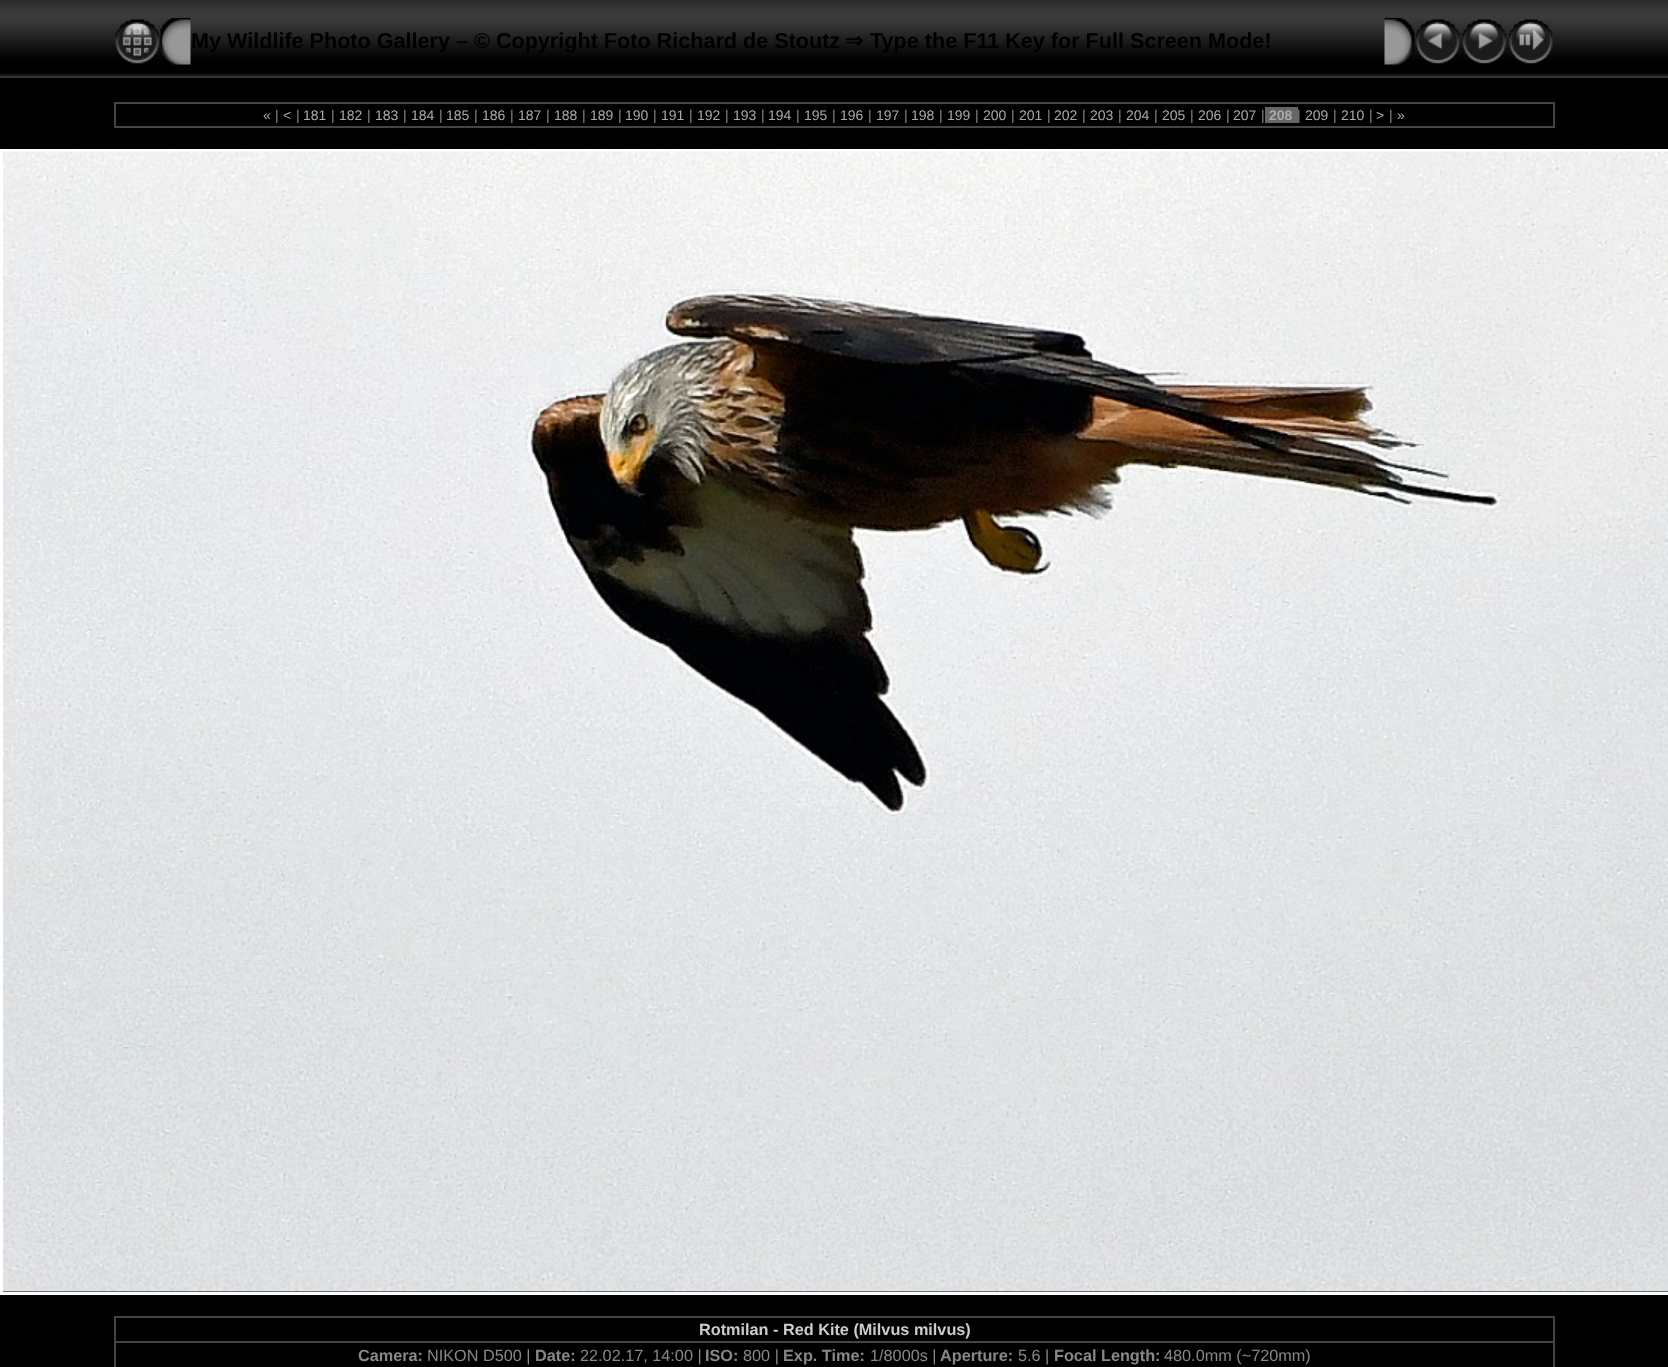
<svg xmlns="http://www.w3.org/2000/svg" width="1668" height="1367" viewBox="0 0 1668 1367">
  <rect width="100%" height="100%" fill="#000"/>
  <image x="0" y="0" width="1668" height="78" href="img/1.png"/>
  <image x="115" y="19" width="45" height="45" href="img/2.png"/>
  <image x="160" y="18" width="31" height="47" href="img/3.png"/>
  <image x="1384" y="18" width="31" height="47" href="img/4.png"/>
  <image x="1415" y="19" width="45" height="45" href="img/5.png"/>
  <image x="1462" y="19" width="45" height="45" href="img/6.png"/>
  <image x="1508" y="19" width="45" height="45" href="img/7.png"/>
  <path d="M114 102h1440v2H114z" fill="#444"/>
  <path d="M1553 102h2v26H1553z" fill="#444"/>
  <path d="M114 126h1440v2H114z" fill="#444"/>
  <path d="M114 102h2v26H114z" fill="#444"/>
  <path d="M1265 107h33v16H1265z" fill="#666"/>
  <path d="M1.5 150.5h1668v1143H1.5z" fill="none" stroke="#fff" stroke-width="3"/>
  <image x="3" y="151" width="1665" height="1141" href="img/8.png"/>
  <path d="M114 1316h1440v2H114z" fill="#444"/>
  <path d="M1553 1316h2v51H1553z" fill="#444"/>
  <path d="M114 1316h2v51H114z" fill="#444"/>
  <path d="M114 1341h1440v2H114z" fill="#444"/>
  <text x="191" y="48" font-family="Liberation Sans" font-size="21.6" font-weight="bold" fill="#000">My Wildlife Photo Gallery – © Copyright Foto Richard de Stoutz</text>
  <text x="845" y="48" font-family="DejaVu Sans" font-size="21.6" font-weight="bold" fill="#000">⇒</text>
  <text x="870" y="48" font-family="Liberation Sans" font-size="21.6" font-weight="bold" fill="#000">Type the F11 Key for Full Screen Mode!</text>
  <text x="263" y="120" font-family="Liberation Sans" font-size="14" fill="#aaa">«</text>
  <text x="275" y="120" font-family="Liberation Sans" font-size="14" fill="#888">|</text>
  <text x="283" y="120" font-family="Liberation Sans" font-size="14" fill="#aaa">&lt;</text>
  <text x="296" y="120" font-family="Liberation Sans" font-size="14" fill="#888">|</text>
  <text x="303" y="120" font-family="Liberation Sans" font-size="14" fill="#aaa">181</text>
  <text x="331" y="120" font-family="Liberation Sans" font-size="14" fill="#888">|</text>
  <text x="339" y="120" font-family="Liberation Sans" font-size="14" fill="#aaa">182</text>
  <text x="367" y="120" font-family="Liberation Sans" font-size="14" fill="#888">|</text>
  <text x="375" y="120" font-family="Liberation Sans" font-size="14" fill="#aaa">183</text>
  <text x="403" y="120" font-family="Liberation Sans" font-size="14" fill="#888">|</text>
  <text x="411" y="120" font-family="Liberation Sans" font-size="14" fill="#aaa">184</text>
  <text x="439" y="120" font-family="Liberation Sans" font-size="14" fill="#888">|</text>
  <text x="446" y="120" font-family="Liberation Sans" font-size="14" fill="#aaa">185</text>
  <text x="474" y="120" font-family="Liberation Sans" font-size="14" fill="#888">|</text>
  <text x="482" y="120" font-family="Liberation Sans" font-size="14" fill="#aaa">186</text>
  <text x="510" y="120" font-family="Liberation Sans" font-size="14" fill="#888">|</text>
  <text x="518" y="120" font-family="Liberation Sans" font-size="14" fill="#aaa">187</text>
  <text x="546" y="120" font-family="Liberation Sans" font-size="14" fill="#888">|</text>
  <text x="554" y="120" font-family="Liberation Sans" font-size="14" fill="#aaa">188</text>
  <text x="582" y="120" font-family="Liberation Sans" font-size="14" fill="#888">|</text>
  <text x="590" y="120" font-family="Liberation Sans" font-size="14" fill="#aaa">189</text>
  <text x="618" y="120" font-family="Liberation Sans" font-size="14" fill="#888">|</text>
  <text x="625" y="120" font-family="Liberation Sans" font-size="14" fill="#aaa">190</text>
  <text x="653" y="120" font-family="Liberation Sans" font-size="14" fill="#888">|</text>
  <text x="661" y="120" font-family="Liberation Sans" font-size="14" fill="#aaa">191</text>
  <text x="689" y="120" font-family="Liberation Sans" font-size="14" fill="#888">|</text>
  <text x="697" y="120" font-family="Liberation Sans" font-size="14" fill="#aaa">192</text>
  <text x="725" y="120" font-family="Liberation Sans" font-size="14" fill="#888">|</text>
  <text x="733" y="120" font-family="Liberation Sans" font-size="14" fill="#aaa">193</text>
  <text x="761" y="120" font-family="Liberation Sans" font-size="14" fill="#888">|</text>
  <text x="768" y="120" font-family="Liberation Sans" font-size="14" fill="#aaa">194</text>
  <text x="796" y="120" font-family="Liberation Sans" font-size="14" fill="#888">|</text>
  <text x="804" y="120" font-family="Liberation Sans" font-size="14" fill="#aaa">195</text>
  <text x="832" y="120" font-family="Liberation Sans" font-size="14" fill="#888">|</text>
  <text x="840" y="120" font-family="Liberation Sans" font-size="14" fill="#aaa">196</text>
  <text x="868" y="120" font-family="Liberation Sans" font-size="14" fill="#888">|</text>
  <text x="876" y="120" font-family="Liberation Sans" font-size="14" fill="#aaa">197</text>
  <text x="904" y="120" font-family="Liberation Sans" font-size="14" fill="#888">|</text>
  <text x="911" y="120" font-family="Liberation Sans" font-size="14" fill="#aaa">198</text>
  <text x="939" y="120" font-family="Liberation Sans" font-size="14" fill="#888">|</text>
  <text x="947" y="120" font-family="Liberation Sans" font-size="14" fill="#aaa">199</text>
  <text x="975" y="120" font-family="Liberation Sans" font-size="14" fill="#888">|</text>
  <text x="983" y="120" font-family="Liberation Sans" font-size="14" fill="#aaa">200</text>
  <text x="1011" y="120" font-family="Liberation Sans" font-size="14" fill="#888">|</text>
  <text x="1019" y="120" font-family="Liberation Sans" font-size="14" fill="#aaa">201</text>
  <text x="1047" y="120" font-family="Liberation Sans" font-size="14" fill="#888">|</text>
  <text x="1054" y="120" font-family="Liberation Sans" font-size="14" fill="#aaa">202</text>
  <text x="1082" y="120" font-family="Liberation Sans" font-size="14" fill="#888">|</text>
  <text x="1090" y="120" font-family="Liberation Sans" font-size="14" fill="#aaa">203</text>
  <text x="1118" y="120" font-family="Liberation Sans" font-size="14" fill="#888">|</text>
  <text x="1126" y="120" font-family="Liberation Sans" font-size="14" fill="#aaa">204</text>
  <text x="1154" y="120" font-family="Liberation Sans" font-size="14" fill="#888">|</text>
  <text x="1162" y="120" font-family="Liberation Sans" font-size="14" fill="#aaa">205</text>
  <text x="1190" y="120" font-family="Liberation Sans" font-size="14" fill="#888">|</text>
  <text x="1198" y="120" font-family="Liberation Sans" font-size="14" fill="#aaa">206</text>
  <text x="1226" y="120" font-family="Liberation Sans" font-size="14" fill="#888">|</text>
  <text x="1233" y="120" font-family="Liberation Sans" font-size="14" fill="#aaa">207</text>
  <text x="1261" y="120" font-family="Liberation Sans" font-size="14" fill="#888">|</text>
  <text x="1269" y="120" font-family="Liberation Sans" font-size="14" font-weight="bold" fill="#aaa">208</text>
  <text x="1297" y="120" font-family="Liberation Sans" font-size="14" fill="#888">|</text>
  <text x="1305" y="120" font-family="Liberation Sans" font-size="14" fill="#aaa">209</text>
  <text x="1333" y="120" font-family="Liberation Sans" font-size="14" fill="#888">|</text>
  <text x="1341" y="120" font-family="Liberation Sans" font-size="14" fill="#aaa">210</text>
  <text x="1369" y="120" font-family="Liberation Sans" font-size="14" fill="#888">|</text>
  <text x="1376" y="120" font-family="Liberation Sans" font-size="14" fill="#aaa">&gt;</text>
  <text x="1389" y="120" font-family="Liberation Sans" font-size="14" fill="#888">|</text>
  <text x="1397" y="120" font-family="Liberation Sans" font-size="14" fill="#aaa">»</text>
  <text x="699" y="1335" font-family="Liberation Sans" font-size="16.25" font-weight="bold" fill="#ccc">Rotmilan - Red Kite (Milvus milvus)</text>
  <text x="358" y="1361" font-family="Liberation Sans" font-size="16.25" font-weight="bold" fill="#888">Camera:</text>
  <text x="427" y="1361" font-family="Liberation Sans" font-size="16.25" fill="#888">NIKON D500 |</text>
  <text x="535" y="1361" font-family="Liberation Sans" font-size="16.25" font-weight="bold" fill="#888">Date:</text>
  <text x="580" y="1361" font-family="Liberation Sans" font-size="16.25" fill="#888">22.02.17, 14:00 |</text>
  <text x="705" y="1361" font-family="Liberation Sans" font-size="16.25" font-weight="bold" fill="#888">ISO:</text>
  <text x="743" y="1361" font-family="Liberation Sans" font-size="16.25" fill="#888">800 |</text>
  <text x="783" y="1361" font-family="Liberation Sans" font-size="16.25" font-weight="bold" fill="#888">Exp. Time:</text>
  <text x="870" y="1361" font-family="Liberation Sans" font-size="16.25" fill="#888">1/8000s |</text>
  <text x="940" y="1361" font-family="Liberation Sans" font-size="16.25" font-weight="bold" fill="#888">Aperture:</text>
  <text x="1018" y="1361" font-family="Liberation Sans" font-size="16.25" fill="#888">5.6 |</text>
  <text x="1054" y="1361" font-family="Liberation Sans" font-size="16.25" font-weight="bold" fill="#888">Focal Length:</text>
  <text x="1164" y="1361" font-family="Liberation Sans" font-size="16.25" fill="#888">480.0mm (~720mm)</text>
</svg>
